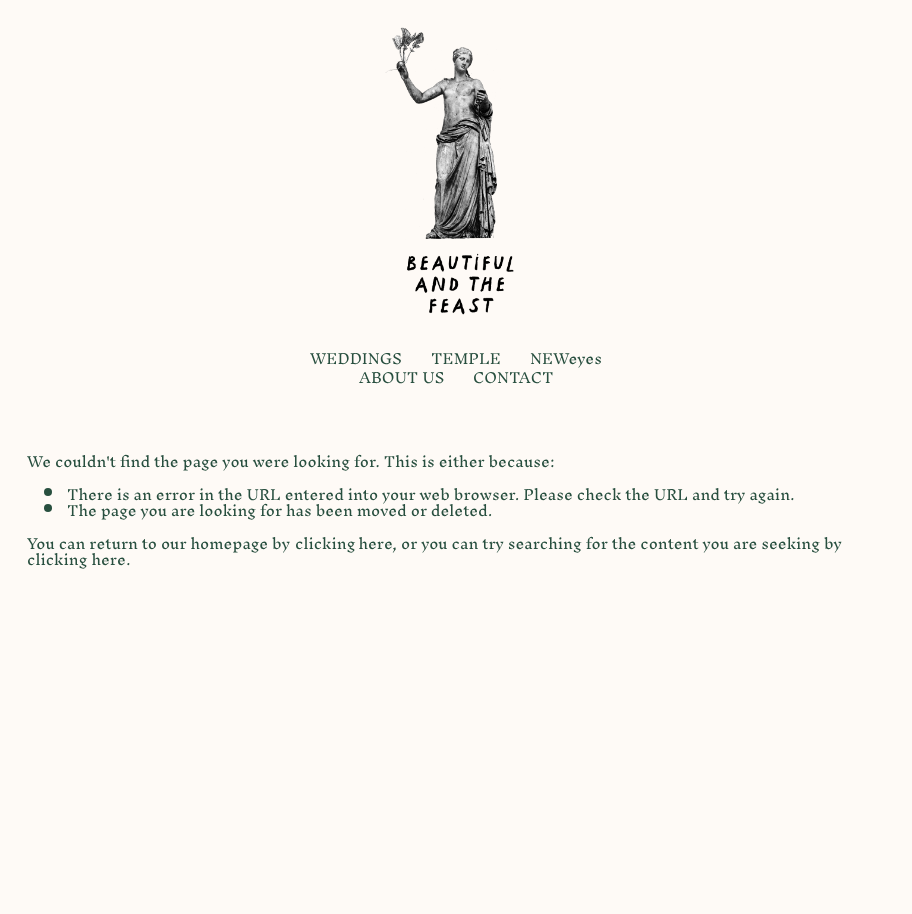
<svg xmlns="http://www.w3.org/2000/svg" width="912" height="914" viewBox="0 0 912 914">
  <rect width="100%" height="100%" fill="#fefaf6"/>
  <image x="385" y="27" width="129" height="288" href="img/1.png"/>
  <circle cx="48" cy="492" r="4" fill="#284f3f"/>
  <circle cx="48" cy="508" r="4" fill="#284f3f"/>
  <g font-family="Inknut Antiqua" font-size="13.8" font-weight="300" fill="#284f3f">
    <text x="310" y="364">WEDDINGS</text>
    <text x="431" y="364">TEMPLE</text>
    <text x="530" y="364">NEWeyes</text>
    <text x="359" y="383">ABOUT US</text>
    <text x="473" y="383">CONTACT</text>
    <text x="27" y="467">We couldn't find the page you were looking for. This is either because:</text>
    <text x="67" y="500">There is an error in the URL entered into your web browser. Please check the URL and try again.</text>
    <text x="67" y="516">The page you are looking for has been moved or deleted.</text>
    <text x="27" y="549">You can return to our homepage by</text>
    <text x="295" y="549" word-spacing="-1">clicking here</text>
    <text x="392" y="549">, or you can try searching for the content you are seeking by</text>
    <text x="27" y="565">clicking here</text>
    <text x="126" y="565">.</text>
  </g>
</svg>
